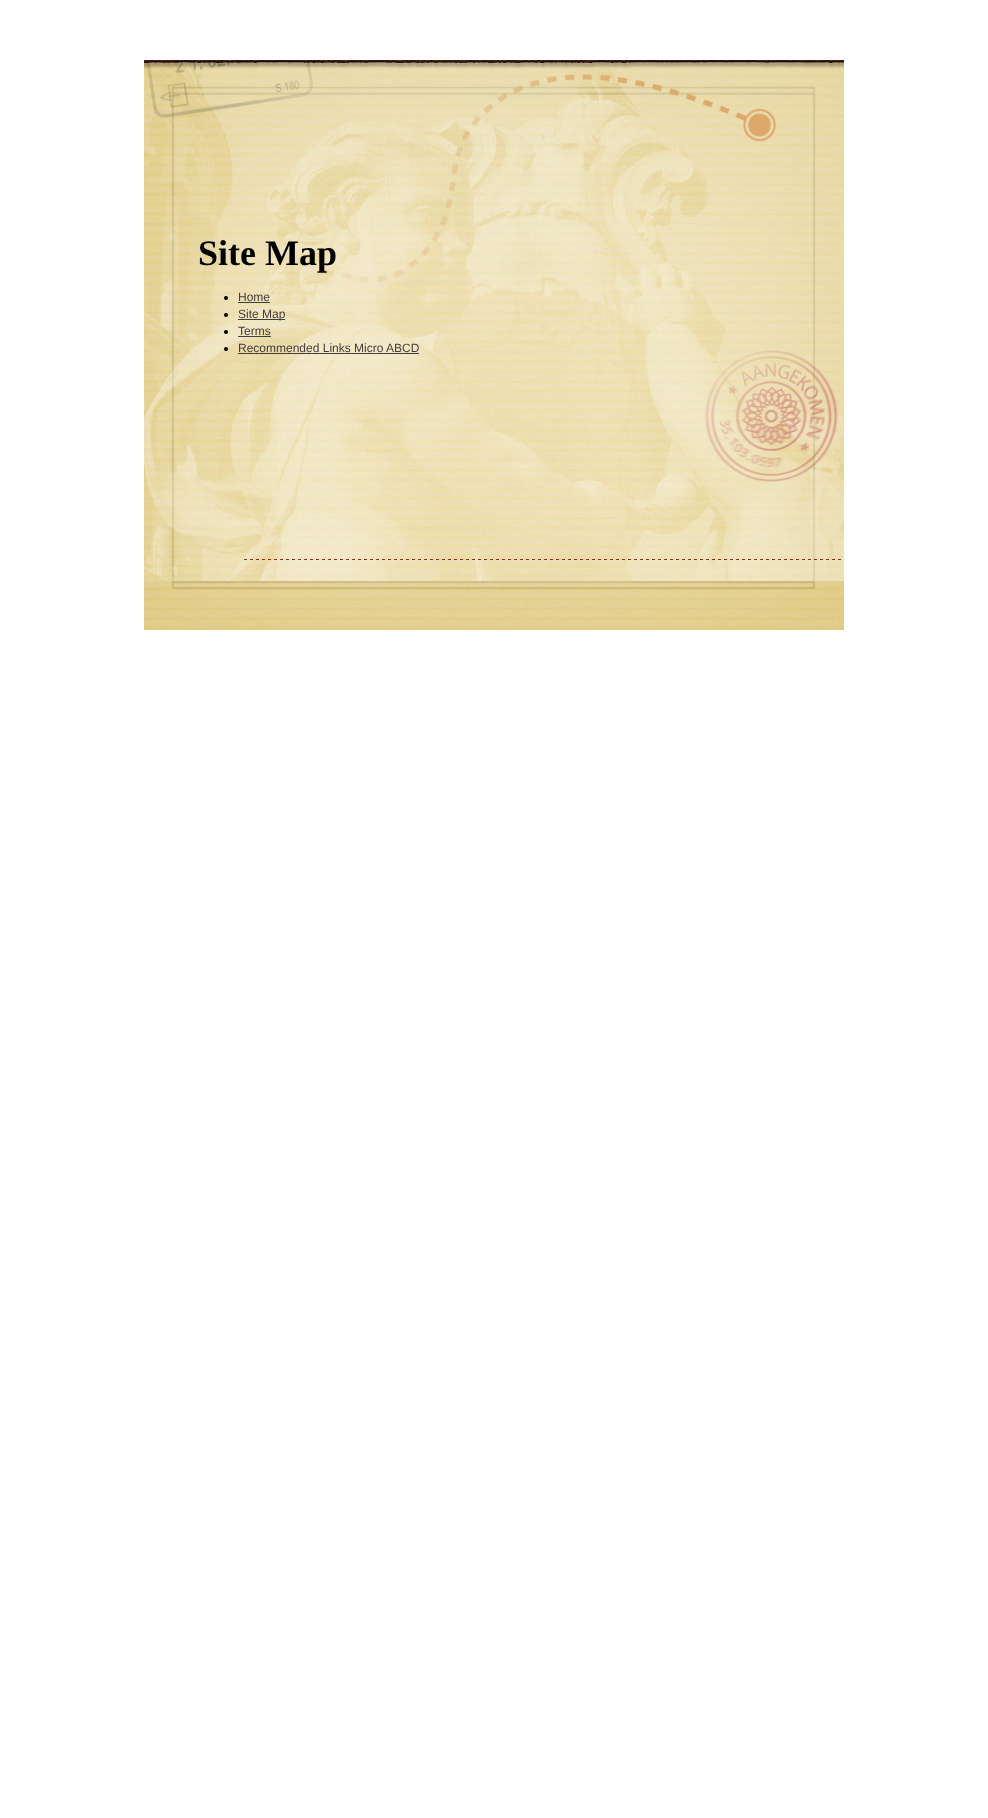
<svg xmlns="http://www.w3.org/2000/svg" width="988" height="1818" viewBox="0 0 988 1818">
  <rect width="100%" height="100%" fill="#fff"/>
  <image x="144" y="60" width="700" height="521" href="img/1.png"/>
  <image x="298" y="74" width="479" height="208" href="img/3.png"/>
  <image x="146" y="60" width="167" height="58" href="img/2.png"/>
  <circle cx="226" cy="298" r="2" fill="#000"/>
  <path d="M238 302h32v1H238z" fill="#453c3c"/>
  <circle cx="226" cy="315" r="2" fill="#000"/>
  <path d="M238 319h47v1H238z" fill="#453c3c"/>
  <circle cx="226" cy="332" r="2" fill="#000"/>
  <path d="M238 336h33v1H238z" fill="#453c3c"/>
  <circle cx="226" cy="349" r="2" fill="#000"/>
  <path d="M238 353h181v1H238z" fill="#453c3c"/>
  <image x="244" y="559" width="597" height="1" href="img/4.png"/>
  <image x="705" y="350" width="133" height="132" href="img/5.png"/>
  <image x="144" y="581" width="700" height="49" href="img/6.png"/>
  <text x="198" y="265" font-family="Liberation Serif" font-size="36" font-weight="bold" fill="#000">Site Map</text>
  <g font-family="Liberation Sans" font-size="12" fill="#453c3c">
    <text x="238" y="301">Home</text>
    <text x="238" y="318">Site Map</text>
    <text x="238" y="335">Terms</text>
    <text x="238" y="352">Recommended Links Micro ABCD</text>
  </g>
</svg>
